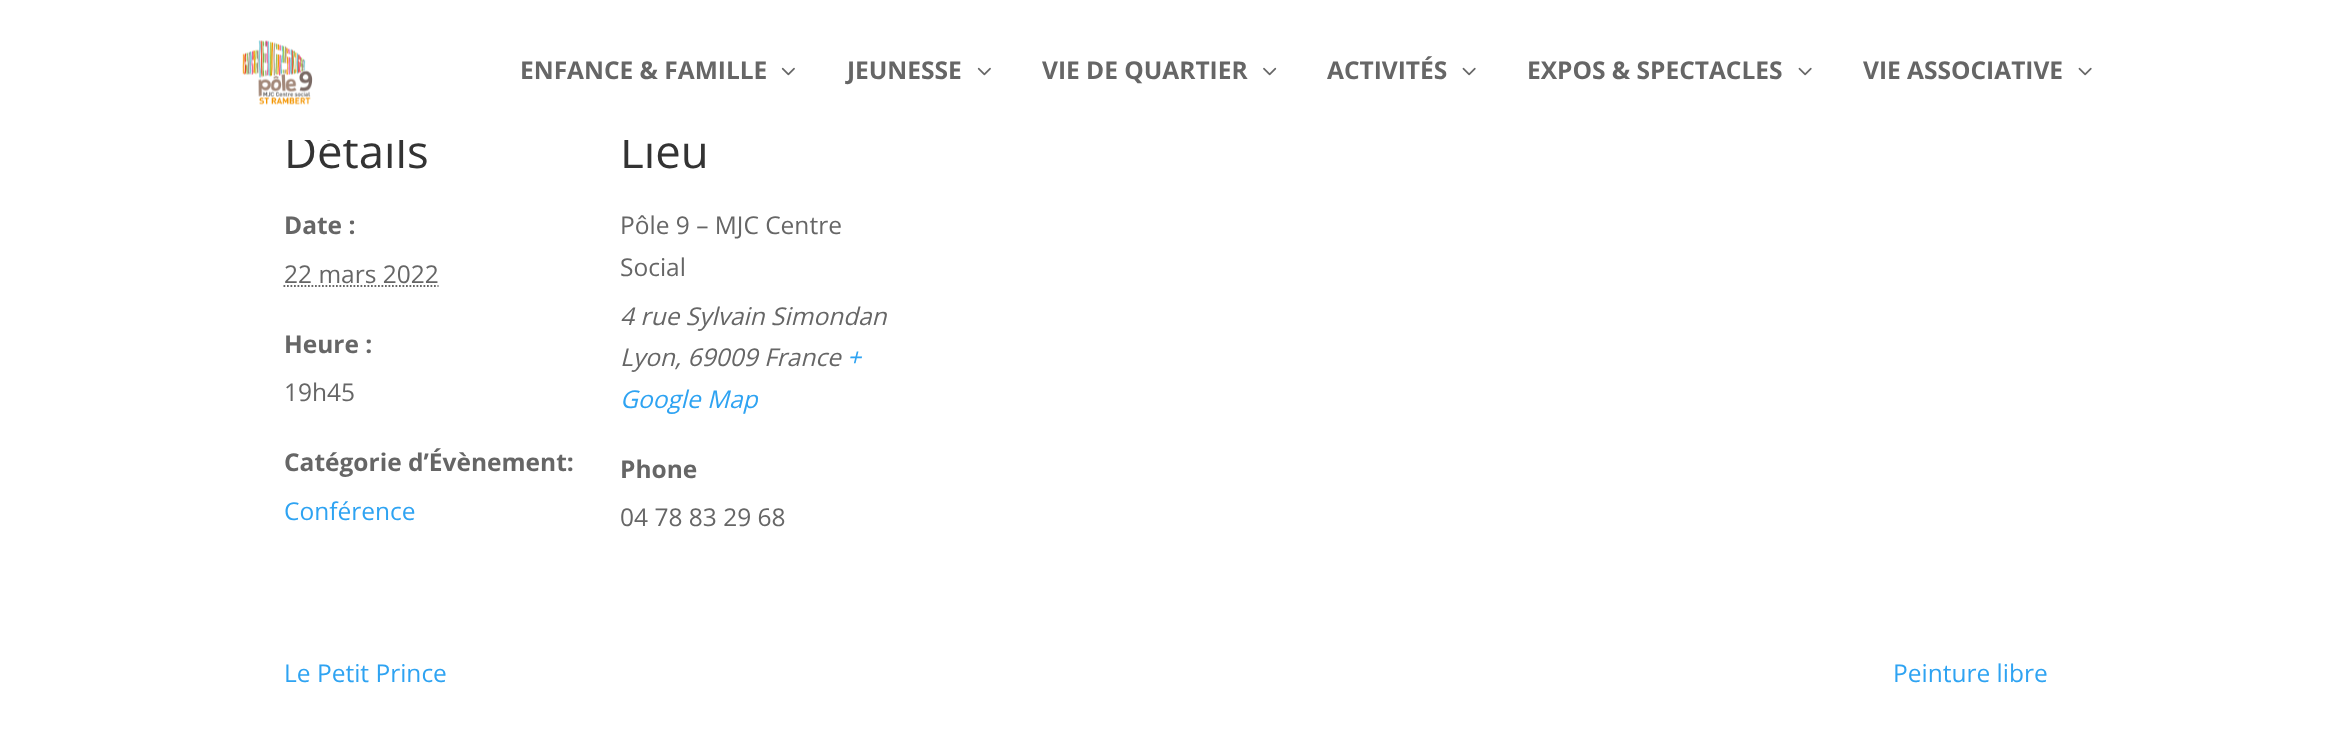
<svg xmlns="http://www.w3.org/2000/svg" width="2331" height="755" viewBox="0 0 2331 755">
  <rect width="100%" height="100%" fill="#fff"/>
  <image x="242" y="40" width="71" height="65" href="img/1.png"/>
  <image x="781" y="67" width="14" height="9" href="img/2.png"/>
  <image x="977" y="67" width="14" height="9" href="img/2.png"/>
  <image x="1263" y="67" width="14" height="9" href="img/3.png"/>
  <image x="1462" y="67" width="14" height="9" href="img/4.png"/>
  <image x="1798" y="67" width="14" height="9" href="img/4.png"/>
  <image x="2078" y="67" width="14" height="9" href="img/4.png"/>
  <path d="M283.5 286H438.5" fill="none" stroke="#666" stroke-width="1.8" stroke-dasharray="1.75 1.75"/>
  <g font-family="Open Sans" font-size="24.5" font-weight="bold" fill="#666">
    <text x="520" y="79">ENFANCE &amp; FAMILLE</text>
    <text x="847" y="79">JEUNESSE</text>
    <text x="1042" y="79">VIE DE QUARTIER</text>
    <text x="1327" y="79">ACTIVITÉS</text>
    <text x="1527" y="79">EXPOS &amp; SPECTACLES</text>
    <text x="1863" y="79">VIE ASSOCIATIVE</text>
  </g>
  <text x="284" y="168" font-family="Open Sans" font-size="45.5" fill="#333">Détails</text>
  <text x="284" y="234" font-family="Open Sans" font-size="24.5" font-weight="bold" fill="#666">Date :</text>
  <text x="284" y="283" font-family="Open Sans" font-size="24.5" fill="#666">22 mars 2022</text>
  <text x="284" y="353" font-family="Open Sans" font-size="24.5" font-weight="bold" fill="#666">Heure :</text>
  <text x="284" y="401" font-family="Open Sans" font-size="24.5" fill="#666">19h45</text>
  <text x="284" y="471" font-family="Open Sans" font-size="24.5" font-weight="bold" fill="#666">Catégorie d’Évènement:</text>
  <text x="284" y="520" font-family="Open Sans" font-size="24.5" fill="#2ea3f2">Conférence</text>
  <text x="620" y="168" font-family="Open Sans" font-size="45.5" fill="#333">Lieu</text>
  <path d="M287 133h365v7H287z" fill="#fff"/>
  <g font-family="Open Sans" font-size="24.5" fill="#666">
    <text x="620" y="234">Pôle 9 – MJC Centre</text>
    <text x="620" y="276">Social</text>
  </g>
  <g font-family="Open Sans" font-size="24.5" font-style="italic" fill="#666">
    <text x="620" y="325">4 rue Sylvain Simondan</text>
    <text x="620" y="366">Lyon, 69009 France</text>
  </g>
  <g font-family="Open Sans" font-size="24.5" font-style="italic" fill="#2ea3f2">
    <text x="847" y="366">+</text>
    <text x="620" y="408">Google Map</text>
  </g>
  <text x="620" y="478" font-family="Open Sans" font-size="24.5" font-weight="bold" fill="#666">Phone</text>
  <text x="620" y="526" font-family="Open Sans" font-size="24.5" fill="#666">04 78 83 29 68</text>
  <g font-family="Open Sans" font-size="24.5" fill="#2ea3f2">
    <text x="284" y="682">Le Petit Prince</text>
    <text x="1893" y="682">Peinture libre</text>
  </g>
</svg>
